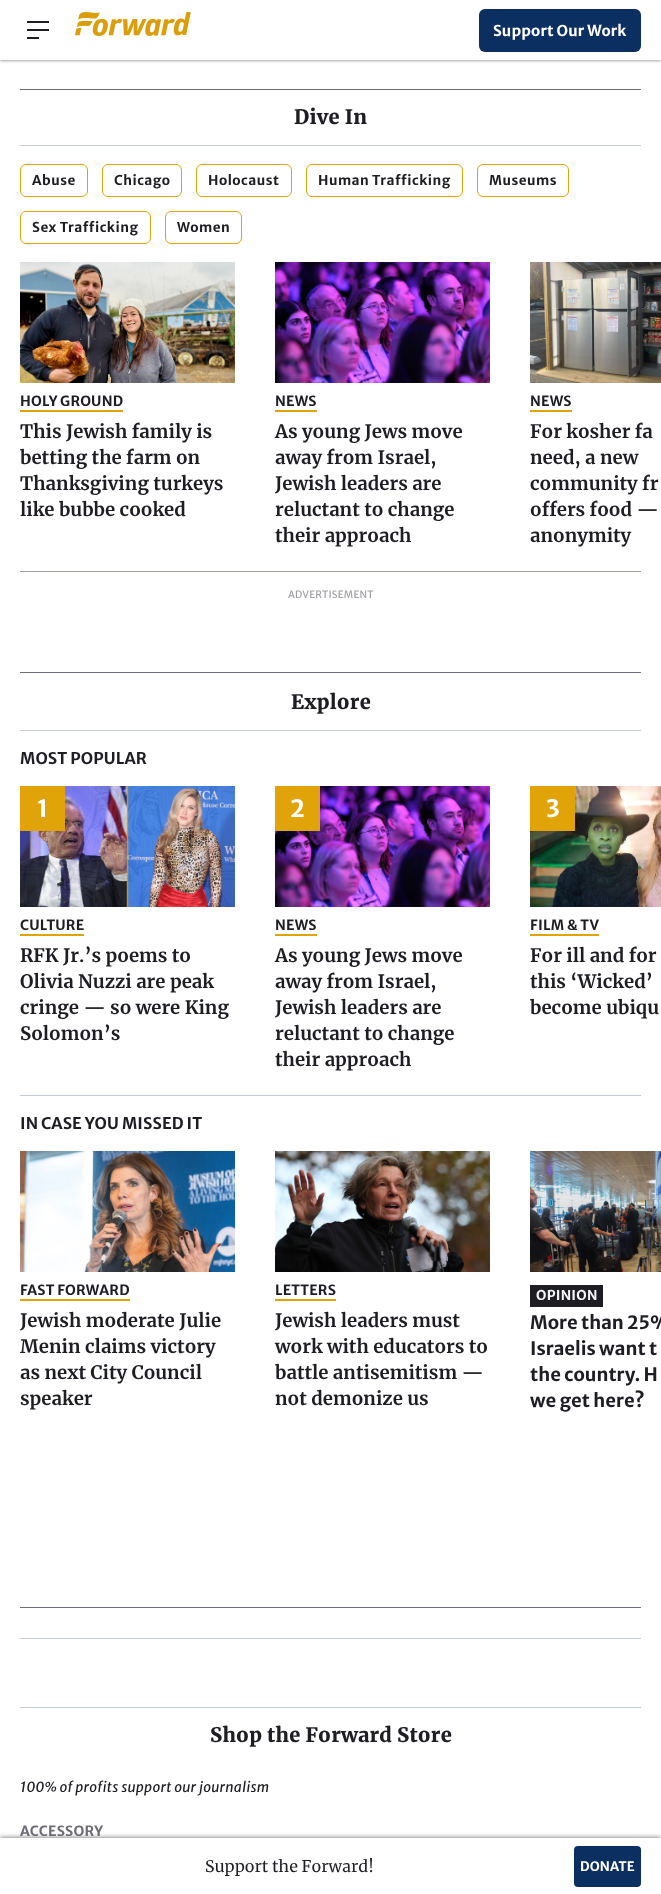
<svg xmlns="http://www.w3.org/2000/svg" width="661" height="1894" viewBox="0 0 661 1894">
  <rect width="100%" height="100%" fill="#fff"/>
  <path d="M0 1h661v60H0z" fill="#00000059" filter="blur(1.5px)"/>
  <path d="M0 0h661v60H0z" fill="#fff"/>
  <path d="M27 21h22v2H27z" fill="#1e1d24"/>
  <path d="M27 29h22v2H27z" fill="#1e1d24"/>
  <path d="M27 37h12v2H27z" fill="#1e1d24"/>
  <image x="75" y="12" width="116" height="24" href="img/1.png"/>
  <rect x="479" y="9" width="162" height="43" rx="6" fill="#0b2f60"/>
  <path d="M20 89h621v1H20z" fill="#6d6d77"/>
  <path d="M20 145h621v1H20z" fill="#c4ccd1"/>
  <rect x="20.5" y="164.5" width="67" height="32" rx="5.5" fill="none" stroke="#e0a408"/>
  <rect x="102.5" y="164.5" width="79" height="32" rx="5.5" fill="none" stroke="#e0a408"/>
  <rect x="196.5" y="164.5" width="95" height="32" rx="5.5" fill="none" stroke="#e0a408"/>
  <rect x="306.5" y="164.5" width="156" height="32" rx="5.5" fill="none" stroke="#e0a408"/>
  <rect x="477.5" y="164.5" width="91" height="32" rx="5.5" fill="none" stroke="#e0a408"/>
  <rect x="20.5" y="211.5" width="130" height="32" rx="5.5" fill="none" stroke="#e0a408"/>
  <rect x="165.5" y="211.5" width="76" height="32" rx="5.5" fill="none" stroke="#e0a408"/>
  <image x="20" y="262" width="215" height="121" href="img/2.png"/>
  <path d="M20 410h103v2H20z" fill="#e0a408"/>
  <image x="275" y="262" width="215" height="121" href="img/3.png"/>
  <path d="M275 410h42v2H275z" fill="#e0a408"/>
  <image x="530" y="262" width="131" height="121" href="img/4.png"/>
  <path d="M530 410h42v2H530z" fill="#e0a408"/>
  <path d="M20 571h621v1H20z" fill="#a0a0a8"/>
  <path d="M20 672h621v1H20z" fill="#6d6d77"/>
  <path d="M20 730h621v1H20z" fill="#c4ccd1"/>
  <image x="20" y="786" width="215" height="121" href="img/5.png"/>
  <path d="M20 786h45v45H20z" fill="#e0a408"/>
  <path d="M20 934h64v2H20z" fill="#e0a408"/>
  <image x="275" y="786" width="215" height="121" href="img/3.png"/>
  <path d="M275 786h45v45H275z" fill="#e0a408"/>
  <path d="M275 934h42v2H275z" fill="#e0a408"/>
  <image x="530" y="786" width="131" height="121" href="img/6.png"/>
  <path d="M530 786h45v45H530z" fill="#e0a408"/>
  <path d="M530 934h69v2H530z" fill="#e0a408"/>
  <path d="M20 1095h621v1H20z" fill="#c4ccd1"/>
  <image x="20" y="1151" width="215" height="121" href="img/7.png"/>
  <path d="M20 1299h110v2H20z" fill="#e0a408"/>
  <image x="275" y="1151" width="215" height="121" href="img/8.png"/>
  <path d="M275 1299h61v2H275z" fill="#e0a408"/>
  <image x="530" y="1151" width="131" height="121" href="img/9.png"/>
  <path d="M530 1285h73v22H530z" fill="#1e1d24"/>
  <path d="M20 1607h621v1H20z" fill="#6d6d77"/>
  <path d="M20 1638h621v1H20z" fill="#c4ccd1"/>
  <path d="M20 1707h621v1H20z" fill="#c4ccd1"/>
  <path d="M0 1838h661v56H0z" fill="#00000054" filter="blur(2.5px)"/>
  <path d="M0 1838h661v56H0z" fill="#00000054" filter="blur(2.5px)"/>
  <path d="M0 1838h661v56H0z" fill="#fff"/>
  <rect x="574" y="1846" width="67" height="41" rx="4" fill="#0b2f60"/>
  <text x="493" y="36" font-family="Merriweather Sans" font-size="15" font-weight="bold" letter-spacing="0.1" fill="#fff">Support Our Work</text>
  <text x="294" y="124" font-family="Merriweather" font-size="20" font-weight="900" letter-spacing="0.2" fill="#1e1d24">Dive In</text>
  <g font-family="Merriweather Sans" font-size="13.5" font-weight="bold" letter-spacing="0.5" fill="#1e1d24">
    <text x="32" y="185">Abuse</text>
    <text x="114" y="185">Chicago</text>
    <text x="208" y="185">Holocaust</text>
    <text x="318" y="185">Human Trafficking</text>
    <text x="489" y="185">Museums</text>
    <text x="32" y="232">Sex Trafficking</text>
    <text x="177" y="232">Women</text>
  </g>
  <text x="20" y="406" font-family="Merriweather Sans" font-size="14" font-weight="bold" letter-spacing="0.2" fill="#1e1d24">HOLY GROUND</text>
  <g font-family="Merriweather" font-size="18.5" font-weight="bold" fill="#1e1d24">
    <text x="20" y="438">This Jewish family is</text>
    <text x="20" y="464">betting the farm on</text>
    <text x="20" y="490">Thanksgiving turkeys</text>
    <text x="20" y="516">like bubbe cooked</text>
  </g>
  <text x="275" y="406" font-family="Merriweather Sans" font-size="14" font-weight="bold" letter-spacing="0.2" fill="#1e1d24">NEWS</text>
  <g font-family="Merriweather" font-size="18.5" font-weight="bold" fill="#1e1d24">
    <text x="275" y="438">As young Jews move</text>
    <text x="275" y="464">away from Israel,</text>
    <text x="275" y="490">Jewish leaders are</text>
    <text x="275" y="516">reluctant to change</text>
    <text x="275" y="542">their approach</text>
  </g>
  <text x="530" y="406" font-family="Merriweather Sans" font-size="14" font-weight="bold" letter-spacing="0.2" fill="#1e1d24">NEWS</text>
  <g font-family="Merriweather" font-size="18.5" font-weight="bold" fill="#1e1d24">
    <text x="530" y="438">For kosher fa</text>
    <text x="530" y="464">need, a new</text>
    <text x="530" y="490">community fr</text>
    <text x="530" y="516">offers food —</text>
    <text x="530" y="542">anonymity</text>
  </g>
  <text x="288" y="598" font-family="Merriweather Sans" font-size="10" letter-spacing="0.2" fill="#a0a0a8">ADVERTISEMENT</text>
  <text x="291" y="709" font-family="Merriweather" font-size="20" font-weight="900" letter-spacing="0.2" fill="#1e1d24">Explore</text>
  <text x="20" y="764" font-family="Merriweather Sans" font-size="16" font-weight="bold" letter-spacing="0.1" fill="#1e1d24">MOST POPULAR</text>
  <text x="37" y="817" font-family="Merriweather Sans" font-size="24" font-weight="bold" fill="#fff">1</text>
  <text x="20" y="930" font-family="Merriweather Sans" font-size="14" font-weight="bold" letter-spacing="0.2" fill="#1e1d24">CULTURE</text>
  <g font-family="Merriweather" font-size="18.5" font-weight="bold" fill="#1e1d24">
    <text x="20" y="962">RFK Jr.’s poems to</text>
    <text x="20" y="988">Olivia Nuzzi are peak</text>
    <text x="20" y="1014">cringe — so were King</text>
    <text x="20" y="1040">Solomon’s</text>
  </g>
  <text x="290" y="817" font-family="Merriweather Sans" font-size="24" font-weight="bold" fill="#fff">2</text>
  <text x="275" y="930" font-family="Merriweather Sans" font-size="14" font-weight="bold" letter-spacing="0.2" fill="#1e1d24">NEWS</text>
  <g font-family="Merriweather" font-size="18.5" font-weight="bold" fill="#1e1d24">
    <text x="275" y="962">As young Jews move</text>
    <text x="275" y="988">away from Israel,</text>
    <text x="275" y="1014">Jewish leaders are</text>
    <text x="275" y="1040">reluctant to change</text>
    <text x="275" y="1066">their approach</text>
  </g>
  <text x="546" y="817" font-family="Merriweather Sans" font-size="24" font-weight="bold" fill="#fff">3</text>
  <text x="530" y="930" font-family="Merriweather Sans" font-size="14" font-weight="bold" letter-spacing="0.2" fill="#1e1d24">FILM &amp; TV</text>
  <g font-family="Merriweather" font-size="18.5" font-weight="bold" fill="#1e1d24">
    <text x="530" y="962">For ill and for</text>
    <text x="530" y="988">this ‘Wicked’</text>
    <text x="530" y="1014">become ubiqu</text>
  </g>
  <text x="20" y="1129" font-family="Merriweather Sans" font-size="16" font-weight="bold" letter-spacing="0.1" fill="#1e1d24">IN CASE YOU MISSED IT</text>
  <text x="20" y="1295" font-family="Merriweather Sans" font-size="14" font-weight="bold" letter-spacing="0.2" fill="#1e1d24">FAST FORWARD</text>
  <g font-family="Merriweather" font-size="18.5" font-weight="bold" fill="#1e1d24">
    <text x="20" y="1327">Jewish moderate Julie</text>
    <text x="20" y="1353">Menin claims victory</text>
    <text x="20" y="1379">as next City Council</text>
    <text x="20" y="1405">speaker</text>
  </g>
  <text x="275" y="1295" font-family="Merriweather Sans" font-size="14" font-weight="bold" letter-spacing="0.2" fill="#1e1d24">LETTERS</text>
  <g font-family="Merriweather" font-size="18.5" font-weight="bold" fill="#1e1d24">
    <text x="275" y="1327">Jewish leaders must</text>
    <text x="275" y="1353">work with educators to</text>
    <text x="275" y="1379">battle antisemitism —</text>
    <text x="275" y="1405">not demonize us</text>
  </g>
  <text x="536" y="1300" font-family="Merriweather Sans" font-size="13.5" font-weight="bold" letter-spacing="0.25" fill="#f5f7f8">OPINION</text>
  <g font-family="Merriweather Sans" font-size="18.5" font-weight="bold" fill="#1e1d24">
    <text x="530" y="1329">More than 25%</text>
    <text x="530" y="1355">Israelis want t</text>
    <text x="530" y="1381">the country. H</text>
    <text x="530" y="1407">we get here?</text>
  </g>
  <text x="210" y="1742" font-family="Merriweather" font-size="20" font-weight="900" letter-spacing="0.2" fill="#1e1d24">Shop the Forward Store</text>
  <text x="20" y="1792" font-family="Merriweather Sans" font-size="14" font-style="italic" letter-spacing="0.2" fill="#1e1d24">100% of profits support our journalism</text>
  <text x="20" y="1836" font-family="Merriweather Sans" font-size="14" font-weight="bold" letter-spacing="0.2" fill="#6d6d77">ACCESSORY</text>
  <text x="205" y="1872" font-family="Merriweather" font-size="16" fill="#1e1d24">Support the Forward!</text>
  <text x="580" y="1871" font-family="Merriweather Sans" font-size="13" font-weight="bold" letter-spacing="0.1" fill="#fff">DONATE</text>
</svg>
